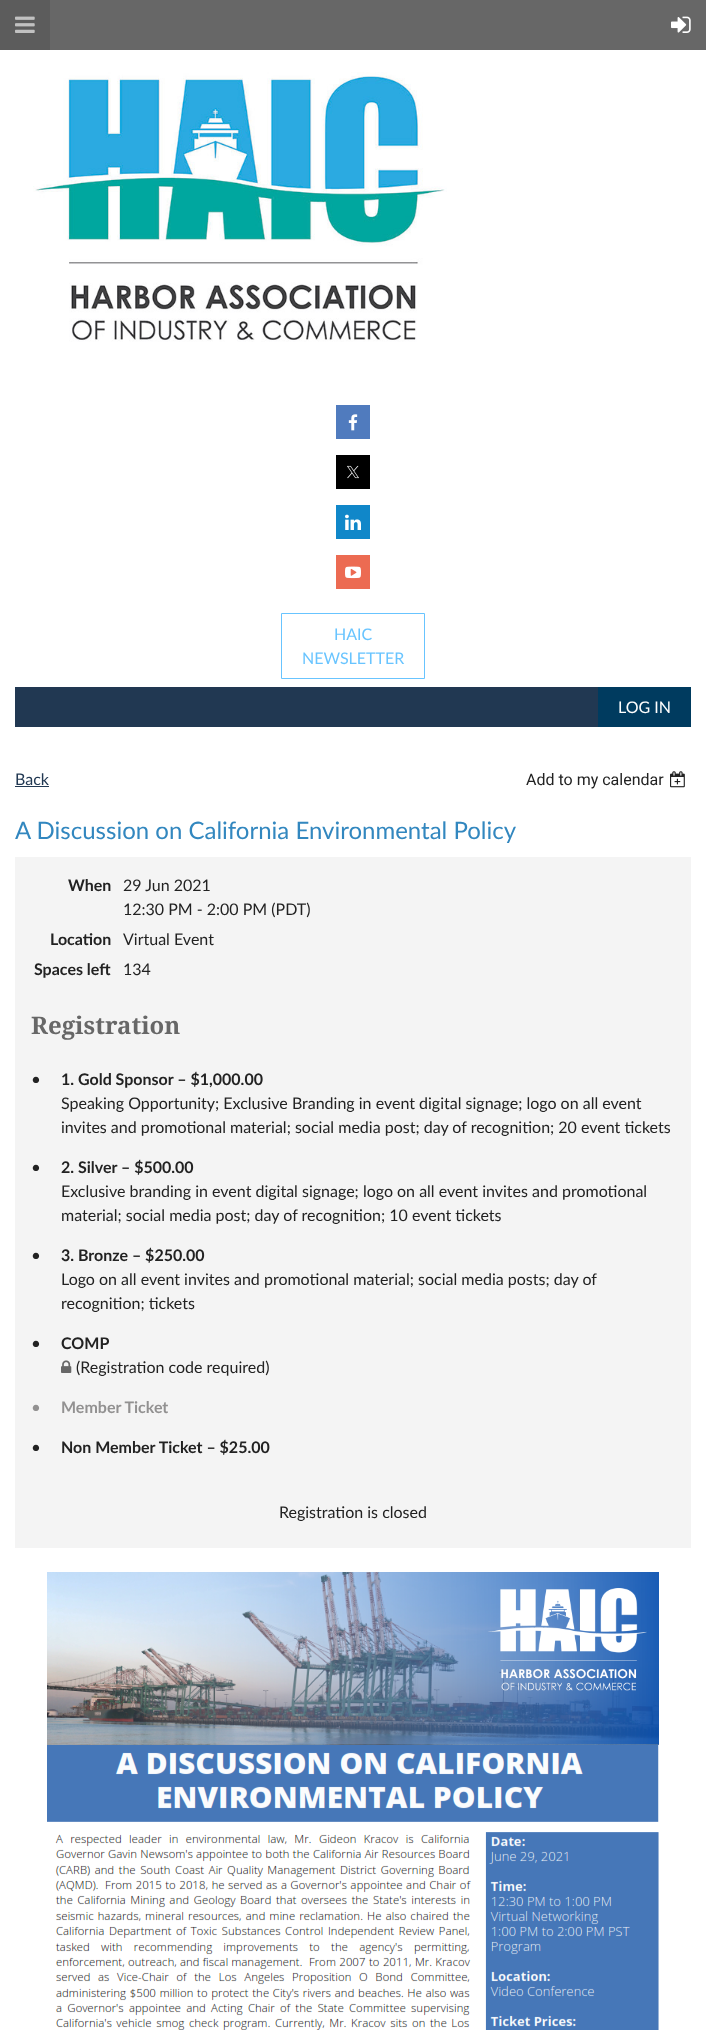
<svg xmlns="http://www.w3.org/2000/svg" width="706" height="2030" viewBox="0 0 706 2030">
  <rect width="100%" height="100%" fill="#fff"/>
  <path d="M50 0h656v50H50z" fill="#676767"/>
  <path d="M0 0h50v50H0z" fill="#5c5c5c"/>
  <image x="15" y="16" width="20" height="17" href="img/1.png"/>
  <image x="671" y="16" width="20" height="17" href="img/2.png"/>
  <image x="33" y="72" width="414" height="270" href="img/3.png"/>
  <path d="M336 405h34v34H336z" fill="#507bbe"/>
  <image x="348" y="414" width="10" height="17" href="img/4.png"/>
  <path d="M336 455h34v34H336z" fill="#000"/>
  <image x="347" y="465" width="12" height="14" href="img/5.png"/>
  <path d="M336 505h34v34H336z" fill="#1087c9"/>
  <image x="345" y="514" width="16" height="16" href="img/6.png"/>
  <path d="M336 555h34v34H336z" fill="#ec6b52"/>
  <image x="345" y="566" width="16" height="13" href="img/7.png"/>
  <path d="M281.5 613.5h143v65H281.5z" fill="none" stroke="#68c4ff"/>
  <path d="M15 687h583v40H15z" fill="#213852"/>
  <path d="M598 687h93v40H598z" fill="#003b5f"/>
  <path d="M15 786h34v1H15z" fill="#213852"/>
  <image x="670" y="771" width="15" height="17" href="img/8.png"/>
  <path d="M15 857h676v691H15z" fill="#f4f4f4"/>
  <image x="61" y="1360" width="11" height="13" href="img/9.png"/>
  <image x="47" y="1572" width="612" height="458" href="img/10.png"/>
  <g font-family="Lato" font-size="16" fill="#68c4ff">
    <text x="334" y="640">HAIC</text>
    <text x="302" y="664">NEWSLETTER</text>
  </g>
  <text x="618" y="713" font-family="Lato" font-size="16" fill="#fff">LOG IN</text>
  <text x="15" y="785" font-family="Lato" font-size="16" fill="#213852">Back</text>
  <text x="526" y="785" font-family="Roboto" font-size="16" fill="#222">Add to my calendar</text>
  <text x="15" y="839" font-family="Lato" font-size="24" fill="#3287bf">A Discussion on California Environmental Policy</text>
  <text x="68" y="891" font-family="Lato" font-size="16" font-weight="bold" fill="#222">When</text>
  <g font-family="Lato" font-size="16" fill="#222">
    <text x="123" y="891">29 Jun 2021</text>
    <text x="123" y="915">12:30 PM - 2:00 PM (PDT)</text>
  </g>
  <text x="50" y="945" font-family="Lato" font-size="16" font-weight="bold" fill="#222">Location</text>
  <text x="123" y="945" font-family="Lato" font-size="16" fill="#222">Virtual Event</text>
  <text x="34" y="975" font-family="Lato" font-size="16" font-weight="bold" fill="#222">Spaces left</text>
  <text x="123" y="975" font-family="Lato" font-size="16" fill="#222">134</text>
  <text x="31" y="1034" font-family="Droid Serif" font-size="24" font-weight="bold" fill="#676767">Registration</text>
  <text x="31" y="1085" font-family="Lato" font-size="17" fill="#222">•</text>
  <text x="61" y="1085" font-family="Lato" font-size="16" font-weight="bold" fill="#222">1. Gold Sponsor – $1,000.00</text>
  <g font-family="Lato" font-size="16" fill="#222">
    <text x="61" y="1109">Speaking Opportunity; Exclusive Branding in event digital signage; logo on all event</text>
    <text x="61" y="1133">invites and promotional material; social media post; day of recognition; 20 event tickets</text>
  </g>
  <text x="31" y="1173" font-family="Lato" font-size="17" fill="#222">•</text>
  <text x="61" y="1173" font-family="Lato" font-size="16" font-weight="bold" fill="#222">2. Silver – $500.00</text>
  <g font-family="Lato" font-size="16" fill="#222">
    <text x="61" y="1197">Exclusive branding in event digital signage; logo on all event invites and promotional</text>
    <text x="61" y="1221">material; social media post; day of recognition; 10 event tickets</text>
  </g>
  <text x="31" y="1261" font-family="Lato" font-size="17" fill="#222">•</text>
  <text x="61" y="1261" font-family="Lato" font-size="16" font-weight="bold" fill="#222">3. Bronze – $250.00</text>
  <g font-family="Lato" font-size="16" fill="#222">
    <text x="61" y="1285">Logo on all event invites and promotional material; social media posts; day of</text>
    <text x="61" y="1309">recognition; tickets</text>
  </g>
  <text x="31" y="1349" font-family="Lato" font-size="17" fill="#222">•</text>
  <text x="61" y="1349" font-family="Lato" font-size="16" font-weight="bold" fill="#222">COMP</text>
  <text x="76" y="1373" font-family="Lato" font-size="16" fill="#222">(Registration code required)</text>
  <text x="31" y="1413" font-family="Lato" font-size="17" fill="#929191">•</text>
  <text x="61" y="1413" font-family="Lato" font-size="16" font-weight="bold" fill="#929191">Member Ticket</text>
  <text x="31" y="1453" font-family="Lato" font-size="17" fill="#222">•</text>
  <text x="61" y="1453" font-family="Lato" font-size="16" font-weight="bold" fill="#222">Non Member Ticket – $25.00</text>
  <text x="279" y="1518" font-family="Lato" font-size="16" fill="#222">Registration is closed</text>
</svg>
